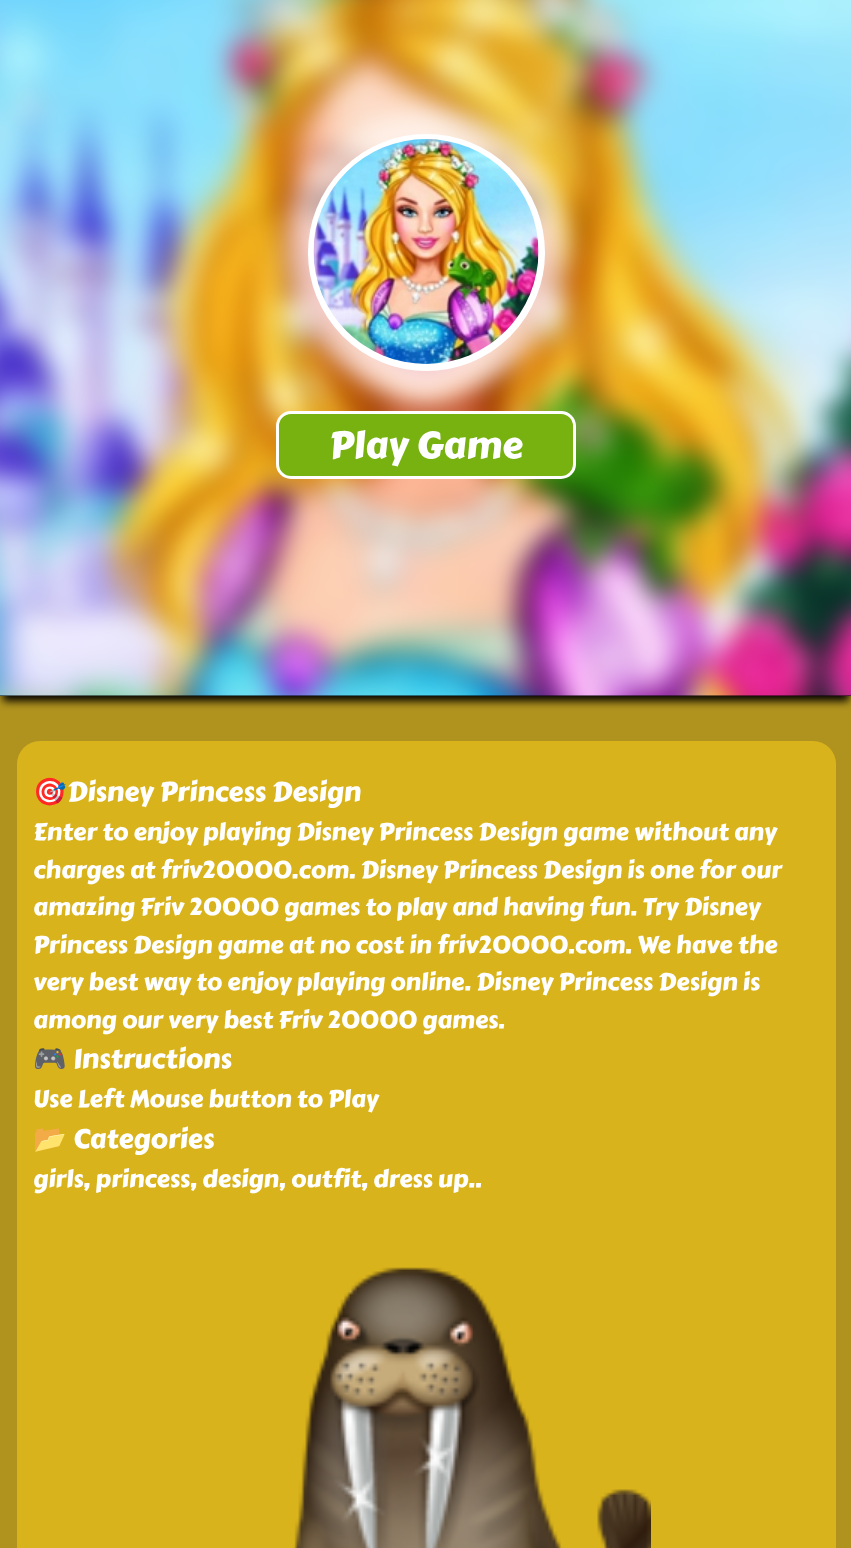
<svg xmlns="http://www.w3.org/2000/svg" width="851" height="1548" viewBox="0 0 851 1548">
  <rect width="100%" height="100%" fill="#b0931f"/>
  <path d="M3 -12h846v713H3z" fill="#000" filter="blur(4px)"/>
  <path d="M0 695h851v1H0z" fill="#000"/>
  <image x="0" y="0" width="851" height="696" href="img/1.png"/>
  <rect x="285" y="111" width="282" height="282" rx="141" fill="#ffffff8c" filter="blur(11px)"/>
  <circle cx="426.5" cy="252.5" r="115.5" fill="#fff" stroke="#fff" stroke-width="6"/>
  <image x="313" y="139" width="226" height="225" href="img/2.png"/>
  <rect x="277.5" y="412.5" width="297" height="65" rx="13.5" fill="#77b211" stroke="#fff" stroke-width="3"/>
  <rect x="17" y="741" width="819" height="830" rx="23" fill="#d9b31b"/>
  <image x="293" y="1267" width="358" height="281" href="img/3.png"/>
  <text x="329" y="458" font-family="Carter One" font-size="37.5" fill="#fff">Play Game</text>
  <text x="33" y="801" font-family="Noto Color Emoji" font-size="27" fill="#fff">🎯</text>
  <text x="67" y="801" font-family="Carter One" font-size="27" fill="#fff">Disney Princess Design</text>
  <g font-family="Carter One" font-size="24" fill="#fff">
    <text x="33" y="840">Enter to enjoy playing Disney Princess Design game without any</text>
    <text x="33" y="878">charges at friv20000.com. Disney Princess Design is one for our</text>
    <text x="33" y="915">amazing Friv 20000 games to play and having fun. Try Disney</text>
    <text x="33" y="953">Princess Design game at no cost in friv20000.com. We have the</text>
    <text x="33" y="990">very best way to enjoy playing online. Disney Princess Design is</text>
    <text x="33" y="1028">among our very best Friv 20000 games.</text>
  </g>
  <text x="33" y="1068" font-family="Noto Color Emoji" font-size="27" fill="#fff">🎮</text>
  <text x="73" y="1068" font-family="Carter One" font-size="27" fill="#fff">Instructions</text>
  <text x="33" y="1107" font-family="Carter One" font-size="24" fill="#fff">Use Left Mouse button to Play</text>
  <text x="33" y="1148" font-family="Noto Color Emoji" font-size="27" fill="#fff">📂</text>
  <text x="73" y="1148" font-family="Carter One" font-size="27" fill="#fff">Categories</text>
  <text x="33" y="1187" font-family="Carter One" font-size="24" fill="#fff">girls, princess, design, outfit, dress up..</text>
</svg>
